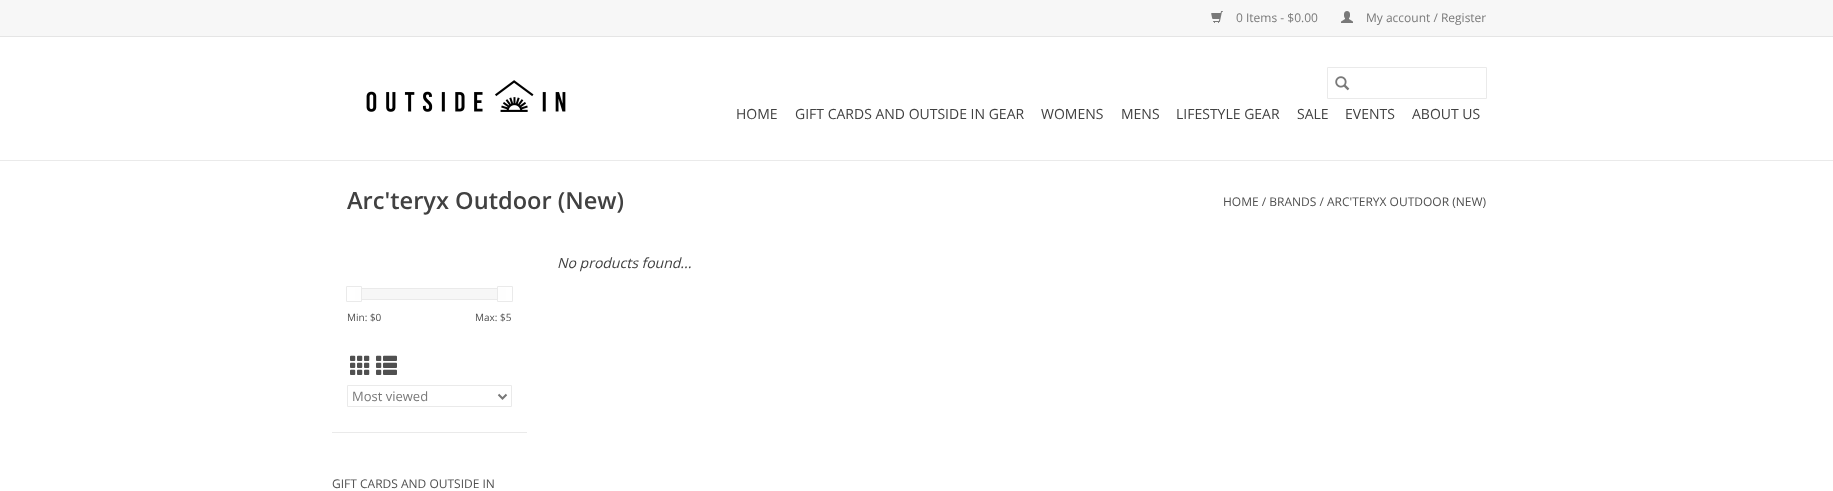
<svg xmlns="http://www.w3.org/2000/svg" width="1833" height="491" viewBox="0 0 1833 491">
  <rect width="100%" height="100%" fill="#fff"/>
  <path d="M0 160h1833v1H0z" fill="#eaeaea"/>
  <path d="M0 0h1833v36H0z" fill="#f7f7f7"/>
  <path d="M0 36h1833v1H0z" fill="#e5e5e5"/>
  <image x="1211" y="11" width="12" height="12" href="img/1.png"/>
  <image x="1341" y="11" width="12" height="12" href="img/2.png"/>
  <image x="366" y="80" width="200" height="32" href="img/3.png"/>
  <path d="M1327.5 67.5h159v31H1327.5z" fill="none" stroke="#eaeaea"/>
  <image x="1335" y="76" width="15" height="15" href="img/4.png"/>
  <path d="M332 432h195v1H332z" fill="#eaeaea"/>
  <path d="M362 289h135v10H362z" fill="#f7f7f7"/>
  <path d="M355.5 288.5h150v11H355.5z" fill="none" stroke="#eaeaea"/>
  <path d="M355 288h6v12H355z" fill="#fefefe"/>
  <path d="M346.5 286.5h15v15H346.5z" fill="none" stroke="#eaeaea"/>
  <path d="M498 288h8v12H498z" fill="#fefefe"/>
  <path d="M497.5 286.5h15v15H497.5z" fill="none" stroke="#eaeaea"/>
  <image x="350" y="355" width="20" height="20" href="img/5.png"/>
  <image x="376" y="355" width="21" height="20" href="img/6.png"/>
  <path d="M347.5 385.5h164v21H347.5z" fill="none" stroke="#eaeaea"/>
  <path d="M498.5 394.5L502.5 398.5L506.5 394.5" fill="none" stroke="#777" stroke-width="2"/>
  <g font-family="Open Sans" font-size="12" fill="#797979">
    <text x="1236" y="22">0 Items - $0.00</text>
    <text x="1366" y="22">My account / Register</text>
  </g>
  <g font-family="Open Sans" font-size="14" fill="#414141">
    <text x="736" y="119">HOME</text>
    <text x="795" y="119">GIFT CARDS AND OUTSIDE IN GEAR</text>
    <text x="1041" y="119">WOMENS</text>
    <text x="1121" y="119">MENS</text>
    <text x="1176" y="119">LIFESTYLE GEAR</text>
    <text x="1297" y="119">SALE</text>
    <text x="1345" y="119">EVENTS</text>
    <text x="1412" y="119">ABOUT US</text>
  </g>
  <text x="347" y="209" font-family="Open Sans" font-size="23.6" font-weight="600" fill="#414141">Arc'teryx Outdoor (New)</text>
  <text x="1223" y="206" font-family="Open Sans" font-size="12" fill="#505050">HOME / BRANDS / ARC'TERYX OUTDOOR (NEW)</text>
  <text x="557" y="268" font-family="Open Sans" font-size="14" font-style="italic" fill="#414141">No products found...</text>
  <g font-family="Open Sans" font-size="10" fill="#505050">
    <text x="347" y="321">Min: $0</text>
    <text x="475" y="321">Max: $5</text>
  </g>
  <text x="352" y="401" font-family="Open Sans" font-size="13" fill="#797979">Most viewed</text>
  <text x="332" y="488" font-family="Open Sans" font-size="12" fill="#505050">GIFT CARDS AND OUTSIDE IN</text>
</svg>
